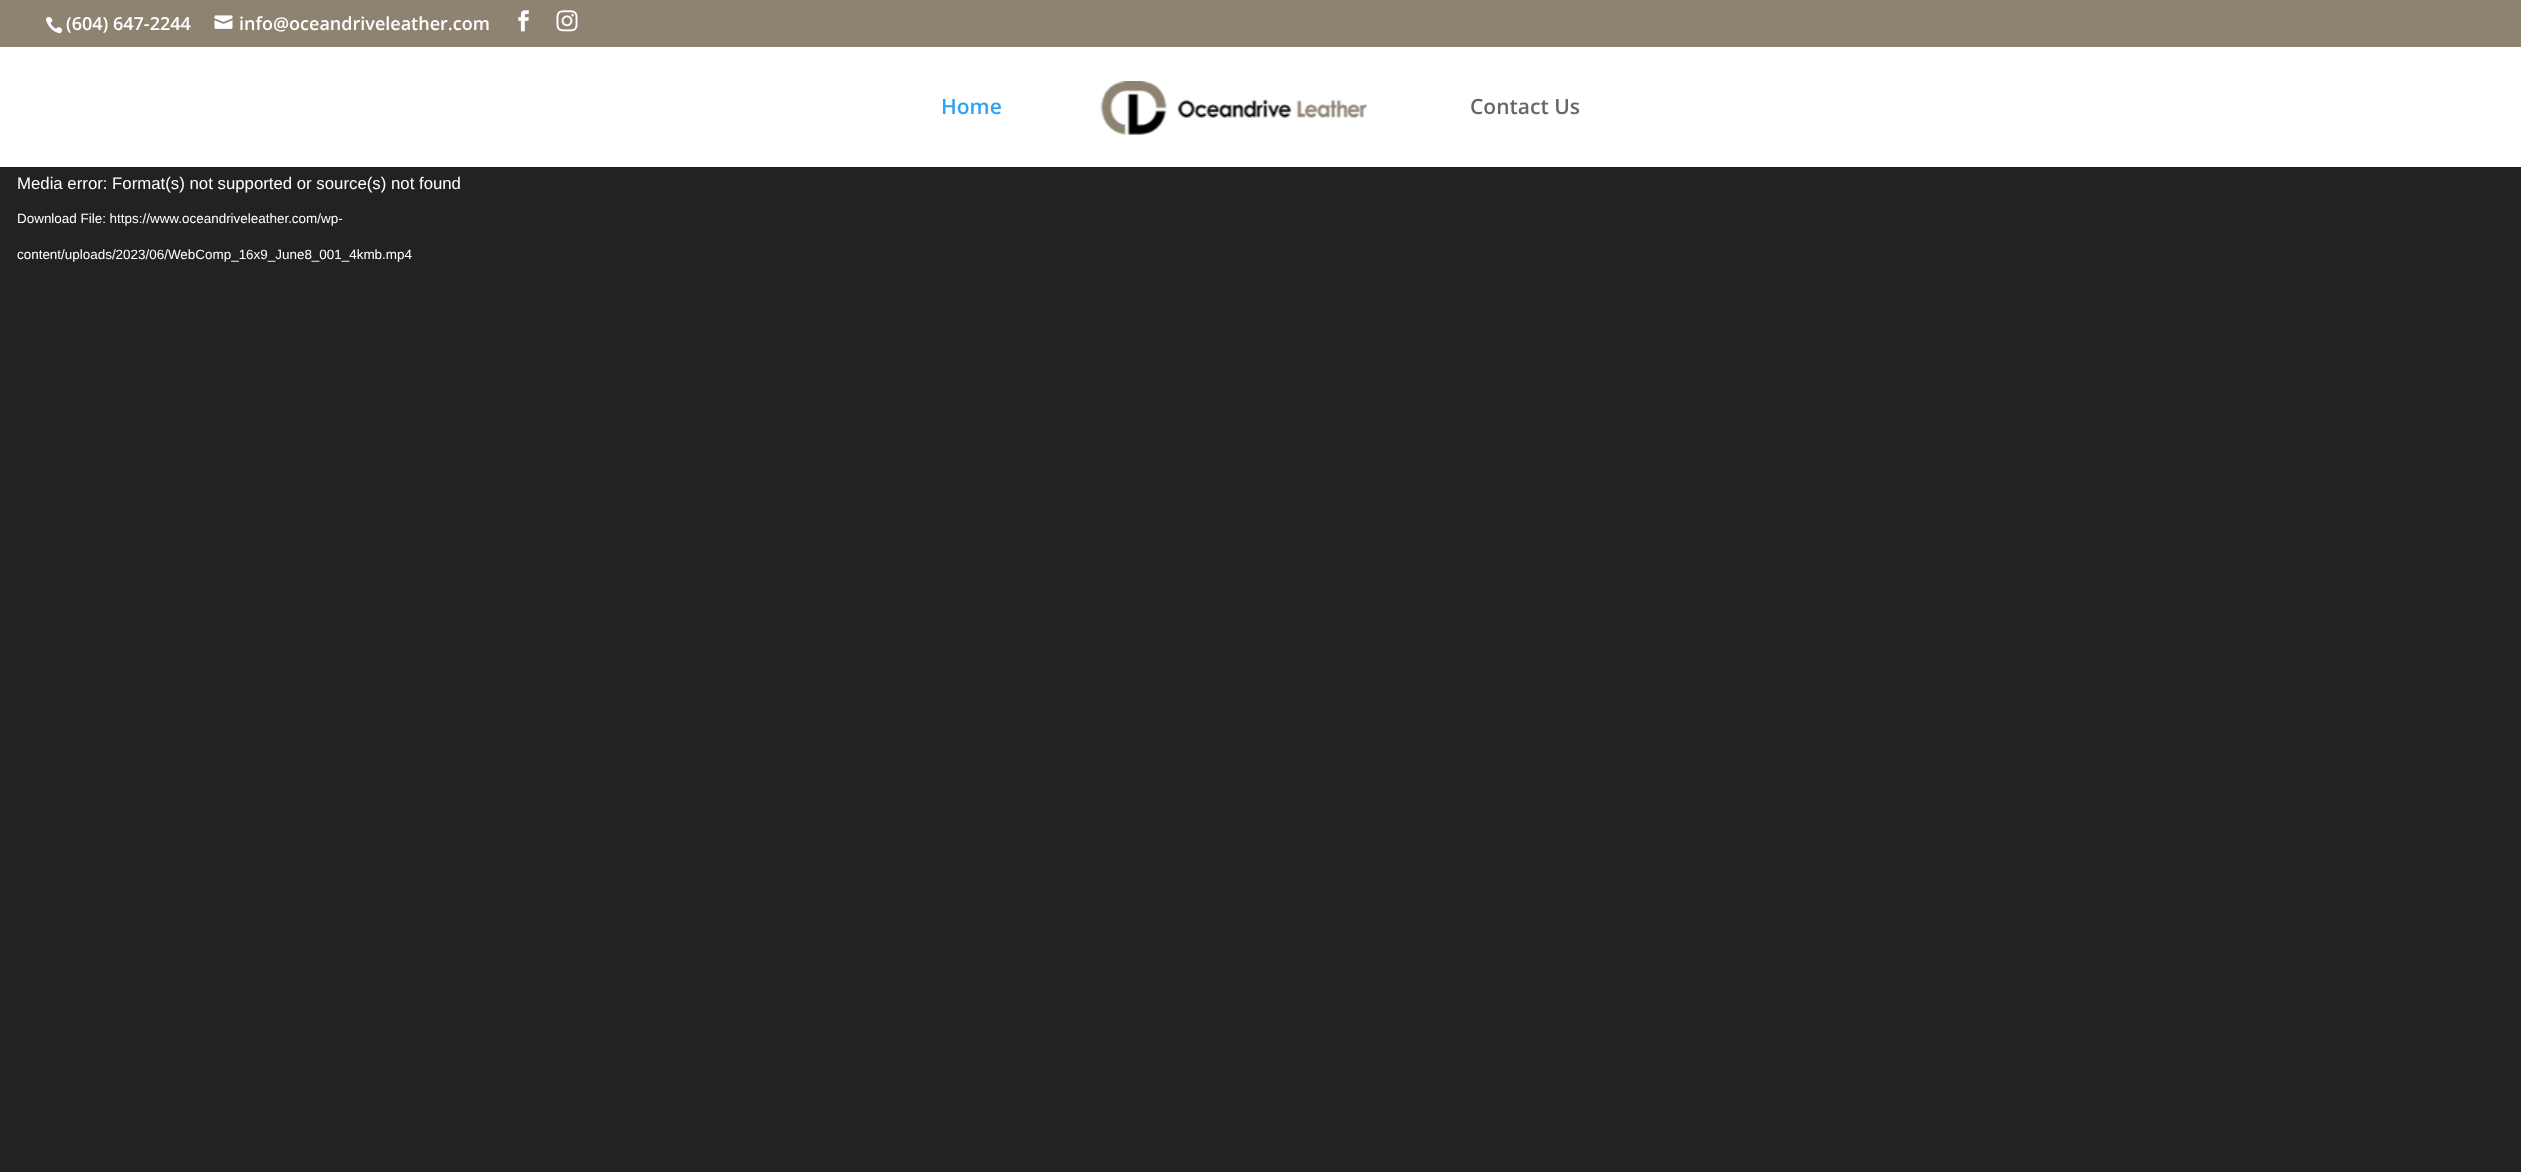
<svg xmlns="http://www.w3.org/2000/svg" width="2521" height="1172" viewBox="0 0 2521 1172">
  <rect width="100%" height="100%" fill="#8e8371"/>
  <image x="45" y="16" width="18" height="18" href="img/1.png"/>
  <image x="214" y="15" width="19" height="14" href="img/2.png"/>
  <image x="518" y="10" width="11" height="22" href="img/3.png"/>
  <image x="556" y="10" width="22" height="22" href="img/4.png"/>
  <path d="M0 167h2521v1005H0z" fill="#222"/>
  <path d="M0 166V168H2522V48V166Z" fill="#0000001a"/>
  <path d="M0 47h2521v120H0z" fill="#fff"/>
  <image x="1100" y="81" width="267" height="54" href="img/5.png"/>
  <g font-family="Open Sans" font-size="18" font-weight="600" fill="#fff">
    <text x="66" y="30">(604) 647-2244</text>
    <text x="239" y="30">info@oceandriveleather.com</text>
  </g>
  <text x="941" y="114" font-family="Open Sans" font-size="21" font-weight="600" fill="#2ea3f2">Home</text>
  <text x="1470" y="114" font-family="Open Sans" font-size="21" font-weight="600" fill="#666">Contact Us</text>
  <text x="17" y="189" font-family="Liberation Sans" font-size="16.8" fill="#fff">Media error: Format(s) not supported or source(s) not found</text>
  <g font-family="Liberation Sans" font-size="13.45" fill="#fff">
    <text x="17" y="223">Download File: https://www.oceandriveleather.com/wp-</text>
    <text x="17" y="259">content/uploads/2023/06/WebComp_16x9_June8_001_4kmb.mp4</text>
  </g>
</svg>
